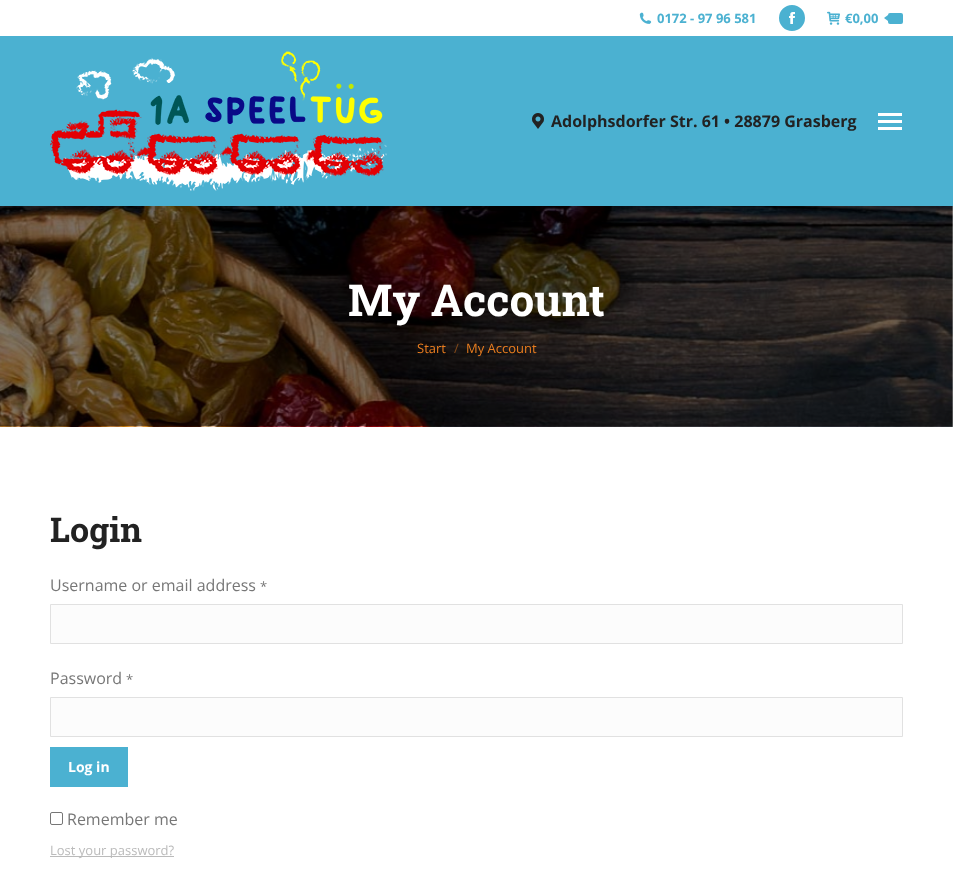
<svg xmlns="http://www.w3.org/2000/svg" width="953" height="879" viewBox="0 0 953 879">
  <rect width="100%" height="100%" fill="#fff"/>
  <image x="0" y="206" width="953" height="221" href="img/6.png"/>
  <path d="M-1 -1h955v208H-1z" fill="#00000012" filter="blur(7.5px)"/>
  <path d="M0 36h953v170H0z" fill="#4bb1d1"/>
  <path d="M0 0h953v36H0z" fill="#fff"/>
  <image x="639" y="12" width="13" height="12" href="img/1.png"/>
  <circle cx="792" cy="18" r="14" fill="#4bb1d1" stroke="#fff" stroke-width="2"/>
  <image x="789" y="12" width="6" height="12" href="img/2.png"/>
  <image x="827" y="11" width="13" height="14" href="img/3.png"/>
  <rect x="888" y="13" width="15" height="11" rx="2" fill="#4bb1d1"/>
  <path d="M888 15V21L884 18Z" fill="#4bb1d1"/>
  <image x="50" y="51" width="337" height="140" href="img/4.png"/>
  <image x="532" y="113" width="12" height="16" href="img/5.png"/>
  <path d="M878 113h24v3H878z" fill="#fff"/>
  <path d="M878 120h24v3H878z" fill="#fff"/>
  <path d="M878 127h24v3H878z" fill="#fff"/>
  <path d="M50.5 604.5h852v39H50.5z" fill="#fcfcfc" stroke="#e1e1e1"/>
  <path d="M50.5 697.5h852v39H50.5z" fill="#fcfcfc" stroke="#e1e1e1"/>
  <path d="M50 747h78v40H50z" fill="#4bb1d1"/>
  <rect x="50.5" y="812.5" width="12" height="12" rx="1.5" fill="none" stroke="#767676"/>
  <path d="M50 856h124v1H50z" fill="#bbb"/>
  <g font-family="Open Sans" font-size="13" font-weight="bold" fill="#4bb1d1">
    <text x="657" y="23">0172 - 97 96 581</text>
    <text x="845" y="23">€0,00</text>
  </g>
  <text x="551" y="127" font-family="Open Sans" font-size="16" font-weight="bold" fill="#222">Adolphsdorfer Str. 61 • 28879 Grasberg</text>
  <text x="348" y="316" font-family="Roboto Slab" font-size="44" font-weight="bold" fill="#fff">My Account</text>
  <text x="417" y="353" font-family="Open Sans" font-size="13" fill="#e97d1f">Start</text>
  <text x="454" y="353" font-family="Open Sans" font-size="13" fill="#81491a">/</text>
  <text x="466" y="353" font-family="Open Sans" font-size="13" fill="#e97d1f">My Account</text>
  <text x="50" y="542" font-family="Roboto Slab" font-size="34" font-weight="bold" fill="#222">Login</text>
  <text x="50" y="591" font-family="Open Sans" font-size="16" fill="#777">Username or email address</text>
  <text x="260" y="591" font-family="Open Sans" font-size="13" fill="#777">*</text>
  <text x="50" y="684" font-family="Open Sans" font-size="16" fill="#777">Password</text>
  <text x="126" y="684" font-family="Open Sans" font-size="13" fill="#777">*</text>
  <text x="68" y="772" font-family="Open Sans" font-size="14" font-weight="bold" fill="#fff">Log in</text>
  <text x="67" y="825" font-family="Open Sans" font-size="16" fill="#777">Remember me</text>
  <text x="50" y="855" font-family="Open Sans" font-size="13" fill="#bbb">Lost your password?</text>
</svg>
